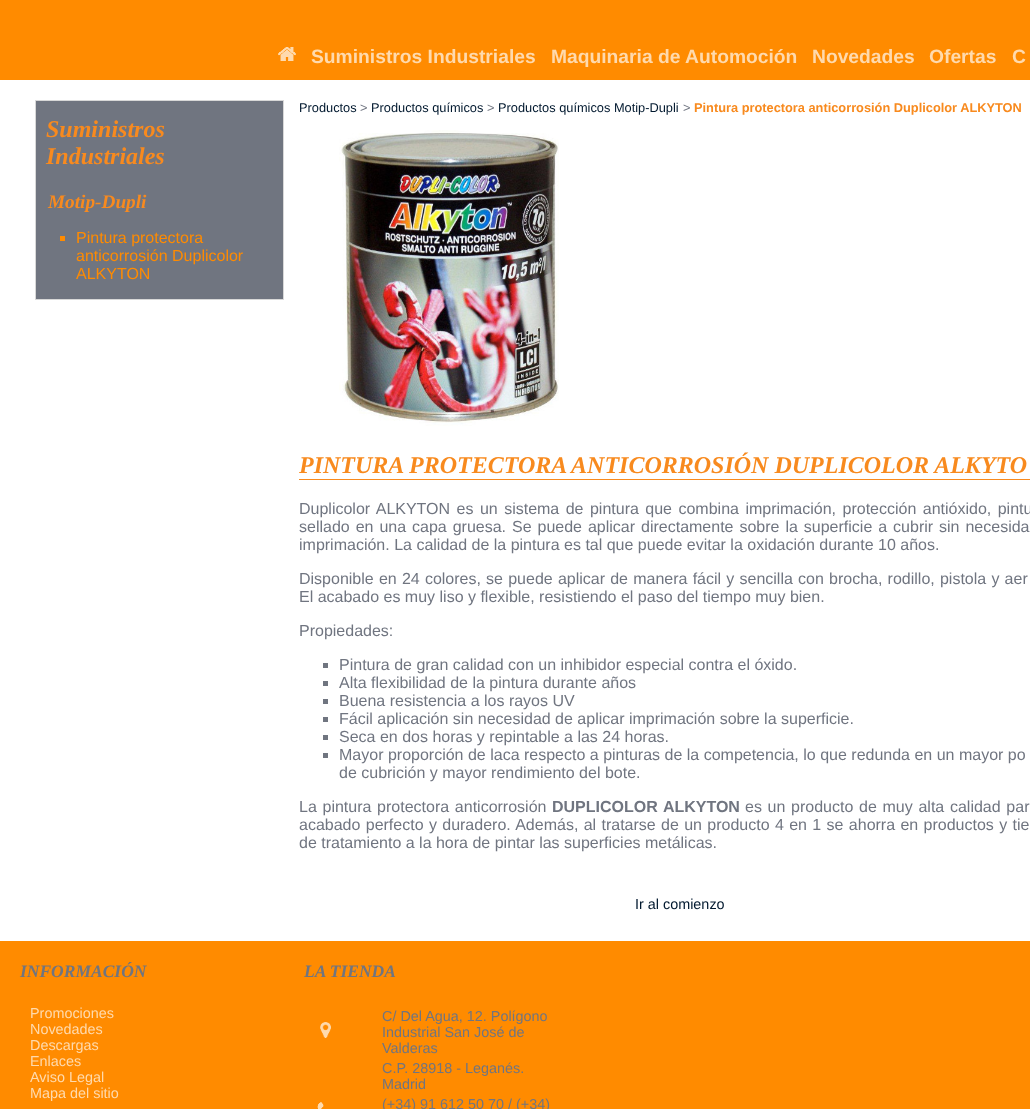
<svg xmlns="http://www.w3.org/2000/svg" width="1030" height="1109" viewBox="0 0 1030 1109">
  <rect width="100%" height="100%" fill="#fff"/>
  <path d="M0 0h1030v80H0z" fill="#ff8b00"/>
  <image x="278" y="47" width="18" height="14" href="img/1.png"/>
  <path d="M35.5 100.5h248v199H35.5z" fill="#707580" stroke="#d8d8d8"/>
  <path d="M60 236h5v5H60z" fill="#ff8b00"/>
  <image x="339" y="130" width="220" height="296" href="img/2.png"/>
  <path d="M299 479h731v1H299z" fill="#f88a1e"/>
  <path d="M323 663h5v5H323z" fill="#707580"/>
  <path d="M323 681h5v5H323z" fill="#707580"/>
  <path d="M323 699h5v5H323z" fill="#707580"/>
  <path d="M323 717h5v5H323z" fill="#707580"/>
  <path d="M323 735h5v5H323z" fill="#707580"/>
  <path d="M323 753h5v5H323z" fill="#707580"/>
  <path d="M0 941h1030v168H0z" fill="#ff8b00"/>
  <image x="320" y="1022" width="11" height="16" href="img/3.png"/>
  <image x="317" y="1102" width="7" height="7" href="img/4.png"/>
  <g font-family="Liberation Sans" font-size="19.25" font-weight="bold" fill="#ffdaad">
    <text x="311" y="63">Suministros Industriales</text>
    <text x="551" y="63">Maquinaria de Automoción</text>
    <text x="812" y="63">Novedades</text>
    <text x="929" y="63">Ofertas</text>
    <text x="1012" y="63">C</text>
  </g>
  <g font-family="Liberation Serif" font-size="24" font-weight="bold" font-style="italic" fill="#f88a1e">
    <text x="46" y="137">Suministros</text>
    <text x="46" y="164">Industriales</text>
  </g>
  <text x="48" y="208" font-family="Liberation Serif" font-size="19.25" font-weight="bold" font-style="italic" fill="#f88a1e">Motip-Dupli</text>
  <g font-family="Liberation Sans" font-size="16" fill="#ff8b00">
    <text x="76" y="243">Pintura protectora</text>
    <text x="76" y="261">anticorrosión Duplicolor</text>
    <text x="76" y="279">ALKYTON</text>
  </g>
  <text x="299" y="112" font-family="Liberation Sans" font-size="12.8" fill="#00182e">Productos</text>
  <text x="360" y="112" font-family="Liberation Sans" font-size="12.8" fill="#707580">&gt;</text>
  <text x="371" y="112" font-family="Liberation Sans" font-size="12.8" fill="#00182e">Productos químicos</text>
  <text x="487" y="112" font-family="Liberation Sans" font-size="12.8" fill="#707580">&gt;</text>
  <text x="498" y="112" font-family="Liberation Sans" font-size="12.8" fill="#00182e">Productos químicos Motip-Dupli</text>
  <text x="683" y="112" font-family="Liberation Sans" font-size="12.8" fill="#707580">&gt;</text>
  <text x="694" y="112" font-family="Liberation Sans" font-size="12.8" font-weight="bold" fill="#f88a1e">Pintura protectora anticorrosión Duplicolor ALKYTON</text>
  <text x="299" y="473" font-family="Liberation Serif" font-size="24" font-weight="bold" font-style="italic" fill="#f88a1e">PINTURA PROTECTORA ANTICORROSIÓN DUPLICOLOR ALKYTO</text>
  <g font-family="Liberation Sans" font-size="16" fill="#707580">
    <text x="299" y="514" word-spacing="2">Duplicolor ALKYTON es un sistema de pintura que combina imprimación, protección antióxido, pintu</text>
    <text x="299" y="532" word-spacing="1.5">sellado en una capa gruesa. Se puede aplicar directamente sobre la superficie a cubrir sin necesida</text>
    <text x="299" y="550">imprimación. La calidad de la pintura es tal que puede evitar la oxidación durante 10 años.</text>
    <text x="299" y="584" word-spacing="0.75">Disponible en 24 colores, se puede aplicar de manera fácil y sencilla con brocha, rodillo, pistola y aer</text>
    <text x="299" y="602">El acabado es muy liso y flexible, resistiendo el paso del tiempo muy bien.</text>
    <text x="299" y="636">Propiedades:</text>
    <text x="339" y="670">Pintura de gran calidad con un inhibidor especial contra el óxido.</text>
    <text x="339" y="688">Alta flexibilidad de la pintura durante años</text>
    <text x="339" y="706">Buena resistencia a los rayos UV</text>
    <text x="339" y="724">Fácil aplicación sin necesidad de aplicar imprimación sobre la superficie.</text>
    <text x="339" y="742">Seca en dos horas y repintable a las 24 horas.</text>
    <text x="339" y="760">Mayor proporción de laca respecto a pinturas de la competencia, lo que redunda en un mayor po</text>
    <text x="339" y="778">de cubrición y mayor rendimiento del bote.</text>
    <text x="299" y="812" word-spacing="1.25">La pintura protectora anticorrosión</text>
  </g>
  <text x="552" y="812" word-spacing="1.25" font-family="Liberation Sans" font-size="16" font-weight="bold" fill="#707580">DUPLICOLOR ALKYTON</text>
  <g font-family="Liberation Sans" font-size="16" fill="#707580">
    <text x="745" y="812" word-spacing="1.25">es un producto de muy alta calidad par</text>
    <text x="299" y="830" word-spacing="0.9">acabado perfecto y duradero. Además, al tratarse de un producto 4 en 1 se ahorra en productos y tie</text>
    <text x="299" y="848">de tratamiento a la hora de pintar las superficies metálicas.</text>
  </g>
  <text x="635" y="909" font-family="Liberation Sans" font-size="14.4" fill="#00182e">Ir al comienzo</text>
  <text x="20" y="977" font-family="Liberation Serif" font-size="17.5" font-weight="bold" font-style="italic" fill="#707580">INFORMACIÓN</text>
  <g font-family="Liberation Sans" font-size="14.4" fill="#ffdaad">
    <text x="30" y="1018">Promociones</text>
    <text x="30" y="1034">Novedades</text>
    <text x="30" y="1050">Descargas</text>
    <text x="30" y="1066">Enlaces</text>
    <text x="30" y="1082">Aviso Legal</text>
    <text x="30" y="1098">Mapa del sitio</text>
  </g>
  <text x="304" y="977" font-family="Liberation Serif" font-size="17.5" font-weight="bold" font-style="italic" fill="#707580">LA TIENDA</text>
  <g font-family="Liberation Sans" font-size="14.4" fill="#707580">
    <text x="382" y="1021">C/ Del Agua, 12. Polígono</text>
    <text x="382" y="1037">Industrial San José de</text>
    <text x="382" y="1053">Valderas</text>
    <text x="382" y="1073">C.P. 28918 - Leganés.</text>
    <text x="382" y="1089">Madrid</text>
    <text x="382" y="1109">(+34) 91 612 50 70 / (+34)</text>
  </g>
</svg>
